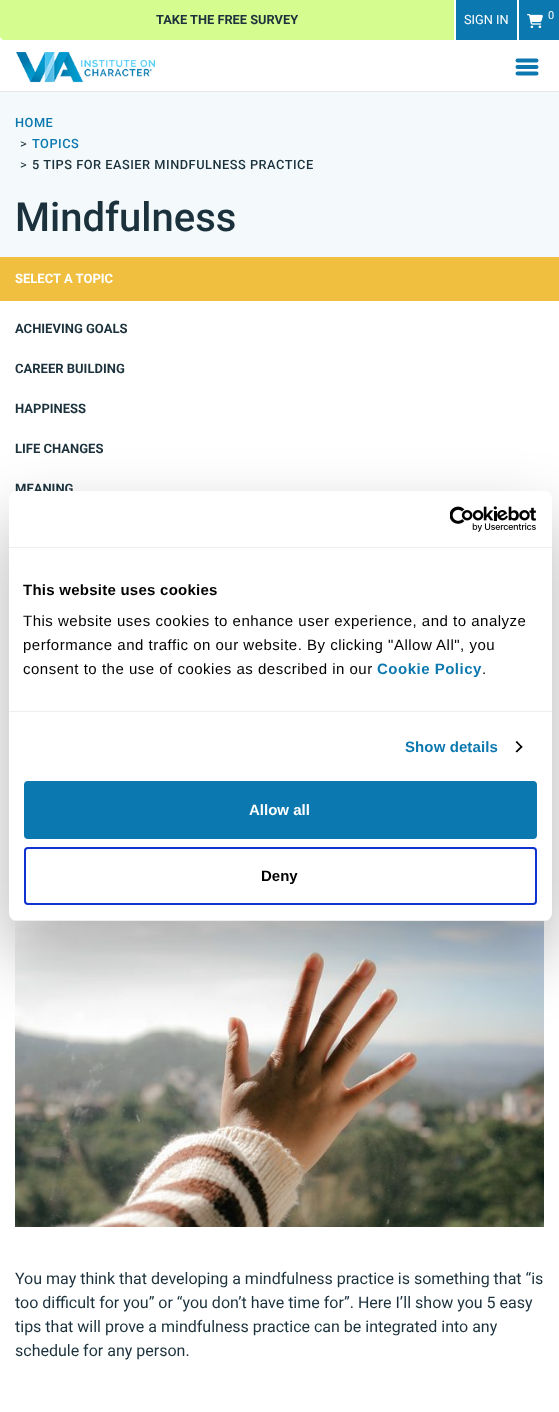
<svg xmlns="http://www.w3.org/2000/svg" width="559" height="1412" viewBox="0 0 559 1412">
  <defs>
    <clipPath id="clip1"><rect x="9" y="491" width="543" height="430" rx="8"/></clipPath>
  </defs>
  <rect width="100%" height="100%" fill="#fff"/>
  <path d="M0 91h559v1H0z" fill="#e6e6e6"/>
  <path d="M0 0H454V40H4C2 40 0 38 0 36Z" fill="#d5fc8f"/>
  <path d="M456 0h103v40H456z" fill="#0b78af"/>
  <path d="M517 0h2v40H517z" fill="#fff"/>
  <image x="527" y="14" width="16" height="14" href="img/1.png"/>
  <image x="16" y="52" width="139" height="31" href="img/2.png"/>
  <path d="M517.5 60.5H536.5M517.5 67H536.5M517.5 73.5H536.5" fill="none" stroke="#0c78af" stroke-width="4" stroke-linecap="round" stroke-linejoin="round"/>
  <path d="M0 92h559v165H0z" fill="#f4fafc"/>
  <path d="M0 257h559v44H0z" fill="#f0bf40"/>
  <image x="15" y="920" width="529" height="307" href="img/3.png"/>
  <rect x="9" y="523" width="543" height="430" rx="8" fill="#0000004d" filter="blur(34px)"/>
  <text x="156" y="24" font-family="Roboto" font-size="12.8" font-weight="bold" fill="#1b313c">TAKE THE FREE SURVEY</text>
  <text x="464" y="24" font-family="Roboto" font-size="12.8" fill="#fff">SIGN IN</text>
  <text x="548" y="19" font-family="Roboto" font-size="11" fill="#fff">0</text>
  <text x="15" y="127" font-family="Roboto" font-size="12.8" font-weight="500" letter-spacing="0.5" fill="#0b78af">HOME</text>
  <text x="20" y="148" font-family="Roboto" font-size="12.8" letter-spacing="0.5" fill="#1b313c">&gt;</text>
  <text x="32" y="148" font-family="Roboto" font-size="12.8" font-weight="500" letter-spacing="0.5" fill="#0b78af">TOPICS</text>
  <text x="20" y="169" font-family="Roboto" font-size="12.8" letter-spacing="0.5" fill="#1b313c">&gt;</text>
  <text x="32" y="169" font-family="Roboto" font-size="12.8" font-weight="500" letter-spacing="0.5" fill="#1b313c">5 TIPS FOR EASIER MINDFULNESS PRACTICE</text>
  <text x="15" y="231" font-family="Roboto" font-size="40" font-weight="500" fill="#1b313c">Mindfulness</text>
  <text x="15" y="283" font-family="Roboto" font-size="13" font-weight="bold" fill="#fff">SELECT A TOPIC</text>
  <g font-family="Roboto" font-size="13" font-weight="bold" fill="#1b313c">
    <text x="15" y="333">ACHIEVING GOALS</text>
    <text x="15" y="373">CAREER BUILDING</text>
    <text x="15" y="413">HAPPINESS</text>
    <text x="15" y="453">LIFE CHANGES</text>
    <text x="15" y="493">MEANING</text>
  </g>
  <g font-family="Roboto" font-size="16" fill="#1b313c">
    <text x="15" y="1284">You may think that developing a mindfulness practice is something that “is</text>
    <text x="15" y="1308">too difficult for you” or “you don’t have time for”. Here I’ll show you 5 easy</text>
    <text x="15" y="1332">tips that will prove a mindfulness practice can be integrated into any</text>
    <text x="15" y="1356">schedule for any person.</text>
  </g>
  <rect x="9" y="491" width="543" height="430" rx="8" fill="#fff"/>
  <path d="M9 547h543v1H9z" fill="#eee"/>
  <image x="450" y="506" width="86" height="26" href="img/4.png"/>
  <path d="M9 711h543v1H9z" fill="#eee"/>
  <text x="23" y="595" font-family="Liberation Sans" font-size="15" font-weight="bold" letter-spacing="0.25" fill="#000">This website uses cookies</text>
  <g font-family="Liberation Sans" font-size="15" letter-spacing="0.5" fill="#000">
    <text x="23" y="626">This website uses cookies to enhance user experience, and to analyze</text>
    <text x="23" y="650">performance and traffic on our website. By clicking "Allow All", you</text>
    <text x="23" y="674">consent to the use of cookies as described in our</text>
  </g>
  <text x="377" y="674" font-family="Liberation Sans" font-size="15" font-weight="bold" letter-spacing="0.5" fill="#0b78af">Cookie Policy</text>
  <text x="482" y="674" font-family="Liberation Sans" font-size="15" letter-spacing="0.5" fill="#000">.</text>
  <text x="405" y="752" font-family="Liberation Sans" font-size="15" font-weight="bold" letter-spacing="0.1" fill="#0b78af">Show details</text>
  <path d="M517 741L522.5 747L521.5 748L515.5 742Z" fill="#000"/>
  <path d="M521.5 745.5L522.5 747L517 752.5L515.5 751.5Z" fill="#000"/>
  <g clip-path="url(#clip1)">
    <path d="M9 920h543v1H9z" fill="#eee"/>
  </g>
  <rect x="25" y="782" width="511" height="56" rx="3" fill="#0b78af" stroke="#0b78af" stroke-width="2"/>
  <text x="249" y="815" font-family="Liberation Sans" font-size="15" font-weight="bold" fill="#fff">Allow all</text>
  <rect x="25" y="848" width="511" height="56" rx="3" fill="none" stroke="#1032cf" stroke-width="2"/>
  <text x="261" y="881" font-family="Liberation Sans" font-size="15" font-weight="bold" fill="#000">Deny</text>
</svg>
